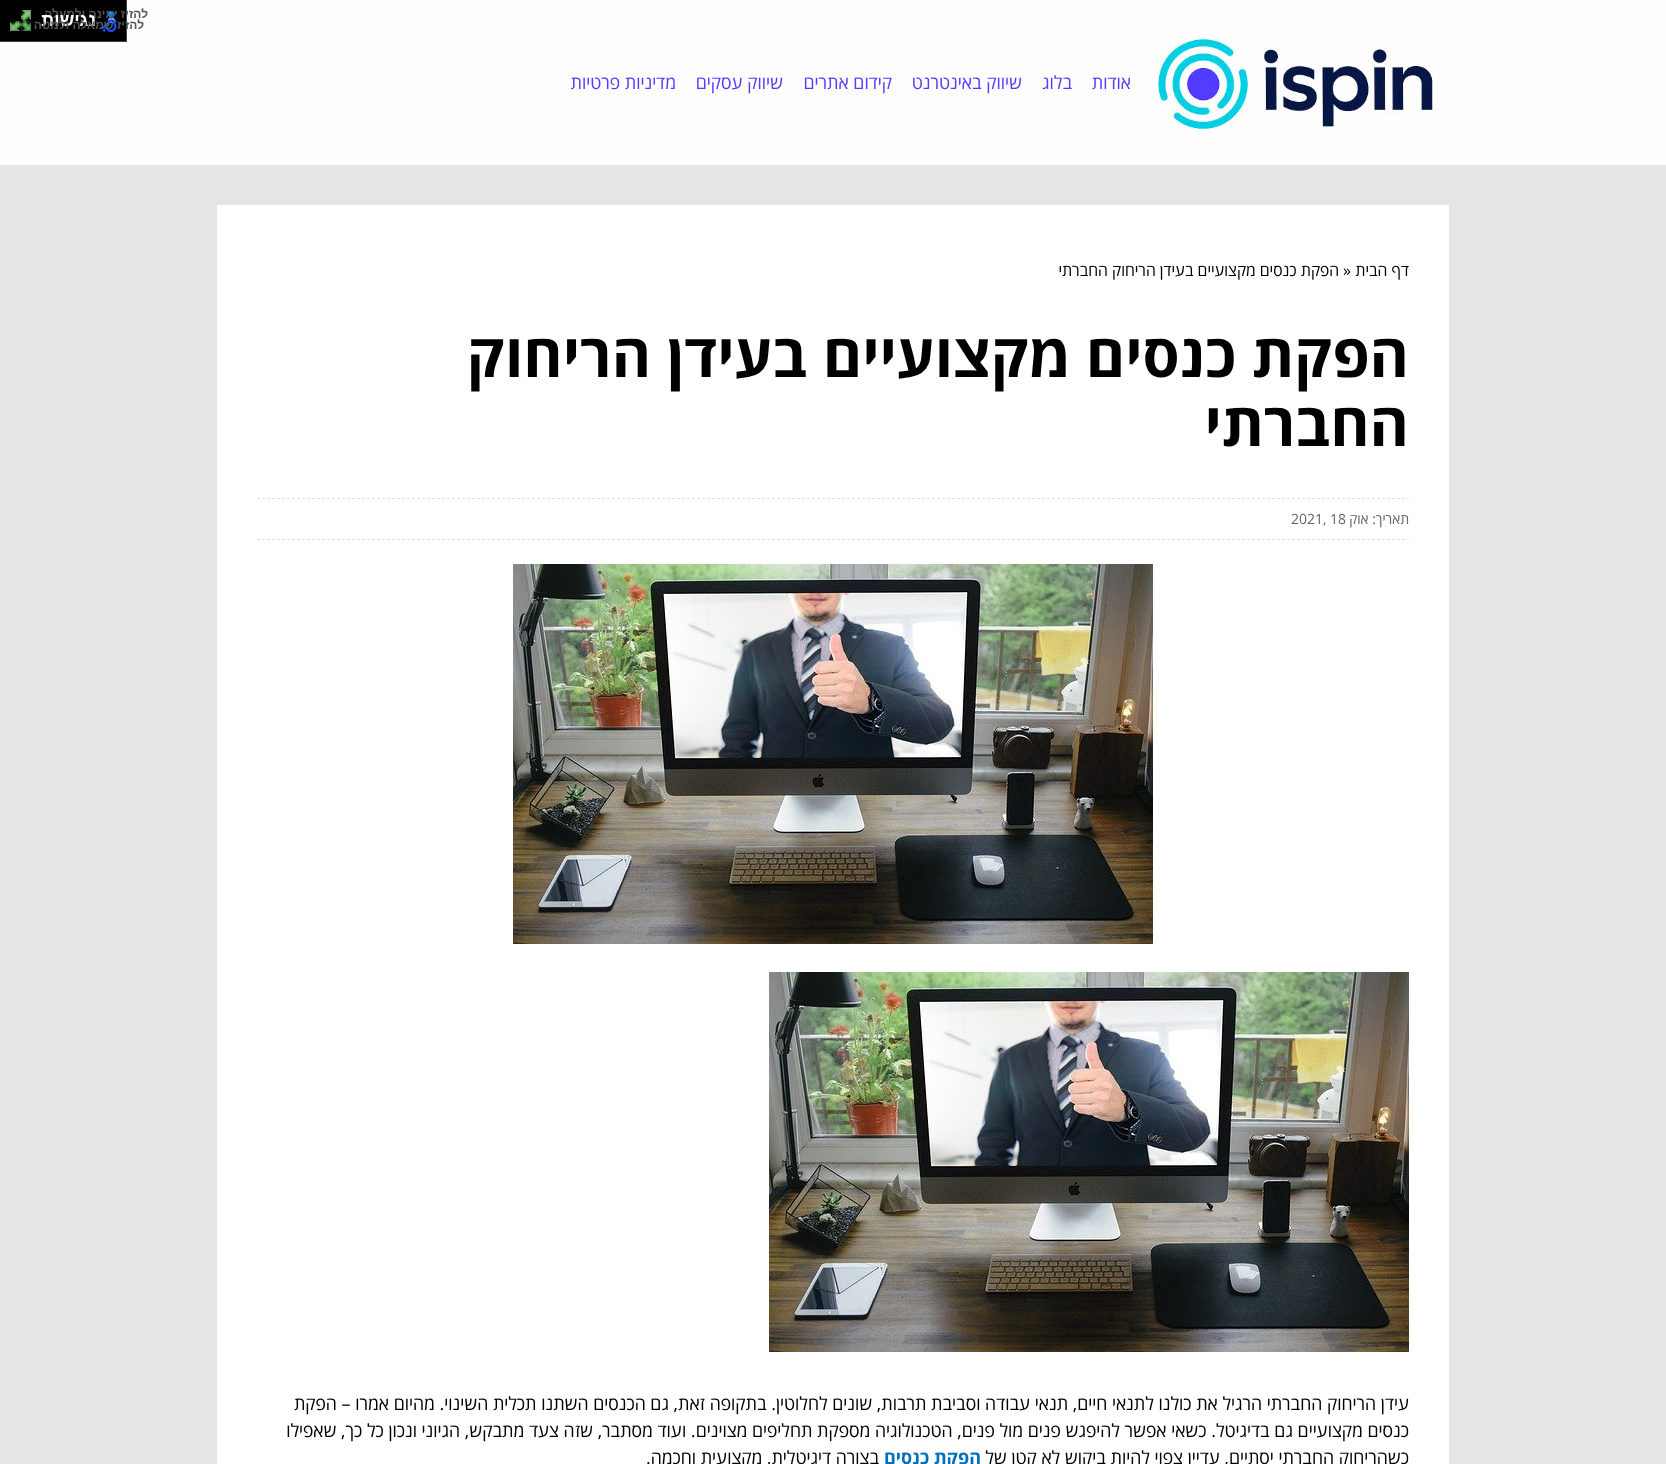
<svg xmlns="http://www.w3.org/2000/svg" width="1666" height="1464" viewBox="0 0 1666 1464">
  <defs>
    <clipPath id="clip1"><path d="M0 0h127v42H0z"/></clipPath>
  </defs>
  <rect width="100%" height="100%" fill="#e5e5e5"/>
  <path d="M0 0h1666v165H0z" fill="#fdfdfd"/>
  <path d="M0 0h126v41H0z" fill="#000"/>
  <g clip-path="url(#clip1)">
    <path d="M-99-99H226V141H-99ZM-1-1H126V41H-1Z" fill="#404040" fill-rule="evenodd"/>
  </g>
  <image x="21" y="10" width="10" height="11" href="img/1.png"/>
  <image x="10" y="21" width="11" height="10" href="img/2.png"/>
  <image x="21" y="21" width="10" height="10" href="img/3.png"/>
  <image x="102" y="11" width="15" height="21" href="img/4.png"/>
  <image x="1151" y="36" width="287" height="96" href="img/5.png"/>
  <path d="M217 205h1232v1259H217z" fill="#fff"/>
  <path d="M257 498.5H1409" fill="none" stroke="#e0e0e0" stroke-dasharray="3 2"/>
  <path d="M257 539.5H1409" fill="none" stroke="#e0e0e0" stroke-dasharray="3 2"/>
  <image x="513" y="564" width="640" height="380" href="img/6.png"/>
  <image x="769" y="972" width="640" height="380" href="img/6.png"/>
  <text x="148" y="18" font-family="Liberation Sans" font-size="12" font-weight="bold" direction="rtl" fill="#51565b">להזיז ימינה ולמעלה</text>
  <text x="96" y="26" font-family="Liberation Sans" font-size="18" font-weight="bold" direction="rtl" fill="#fff">נגישות</text>
  <text x="144" y="29" font-family="Liberation Sans" font-size="12" font-weight="bold" direction="rtl" fill="#51565b">להזיז שמאלה ולמטה</text>
  <g font-family="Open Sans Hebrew" font-size="18" direction="rtl" fill="#523cff">
    <text x="1131" y="89">אודות</text>
    <text x="1072" y="89">בלוג</text>
    <text x="1022" y="89">שיווק באינטרנט</text>
    <text x="892" y="89">קידום אתרים</text>
    <text x="783" y="89">שיווק עסקים</text>
    <text x="676" y="89">מדיניות פרטיות</text>
  </g>
  <text x="1409" y="276" font-family="Open Sans Hebrew" font-size="16" direction="rtl" fill="#000">דף הבית</text>
  <text x="1343" y="276" font-family="Open Sans Hebrew" font-size="16" fill="#000">»</text>
  <text x="1339" y="276" font-family="Open Sans Hebrew" font-size="16" direction="rtl" fill="#000">הפקת כנסים מקצועיים בעידן הריחוק החברתי</text>
  <g font-family="Open Sans Hebrew" font-size="60" font-weight="bold" direction="rtl" fill="#000">
    <text x="1409" y="377">הפקת כנסים מקצועיים בעידן הריחוק</text>
    <text x="1409" y="446">החברתי</text>
  </g>
  <text x="1409" y="524" font-family="Open Sans Hebrew" font-size="14" direction="rtl" fill="#666">תאריך: אוק</text>
  <text x="1291" y="524" font-family="Open Sans Hebrew" font-size="14" fill="#666">2021, 18</text>
  <g font-family="Open Sans Hebrew" font-size="18" direction="rtl" fill="#000">
    <text x="1409" y="1410">עידן הריחוק החברתי הרגיל את כולנו לתנאי חיים, תנאי עבודה וסביבת תרבות, שונים לחלוטין. בתקופה זאת, גם הכנסים השתנו תכלית השינוי. מהיום אמרו – הפקת</text>
    <text x="1409" y="1437">כנסים מקצועיים גם בדיגיטל. כשאי אפשר להיפגש פנים מול פנים, הטכנולוגיה מספקת תחליפים מצוינים. ועוד מסתבר, שזה צעד מתבקש, הגיוני ונכון כל כך, שאפילו</text>
    <text x="1409" y="1464">כשהריחוק החברתי יסתיים, עדיין צפוי להיות ביקוש לא קטן של</text>
  </g>
  <text x="981" y="1464" font-family="Open Sans Hebrew" font-size="18" font-weight="bold" direction="rtl" fill="#0170b9">הפקת כנסים</text>
  <text x="879" y="1464" font-family="Open Sans Hebrew" font-size="18" direction="rtl" fill="#000">בצורה דיגיטלית, מקצועית וחכמה.</text>
</svg>
